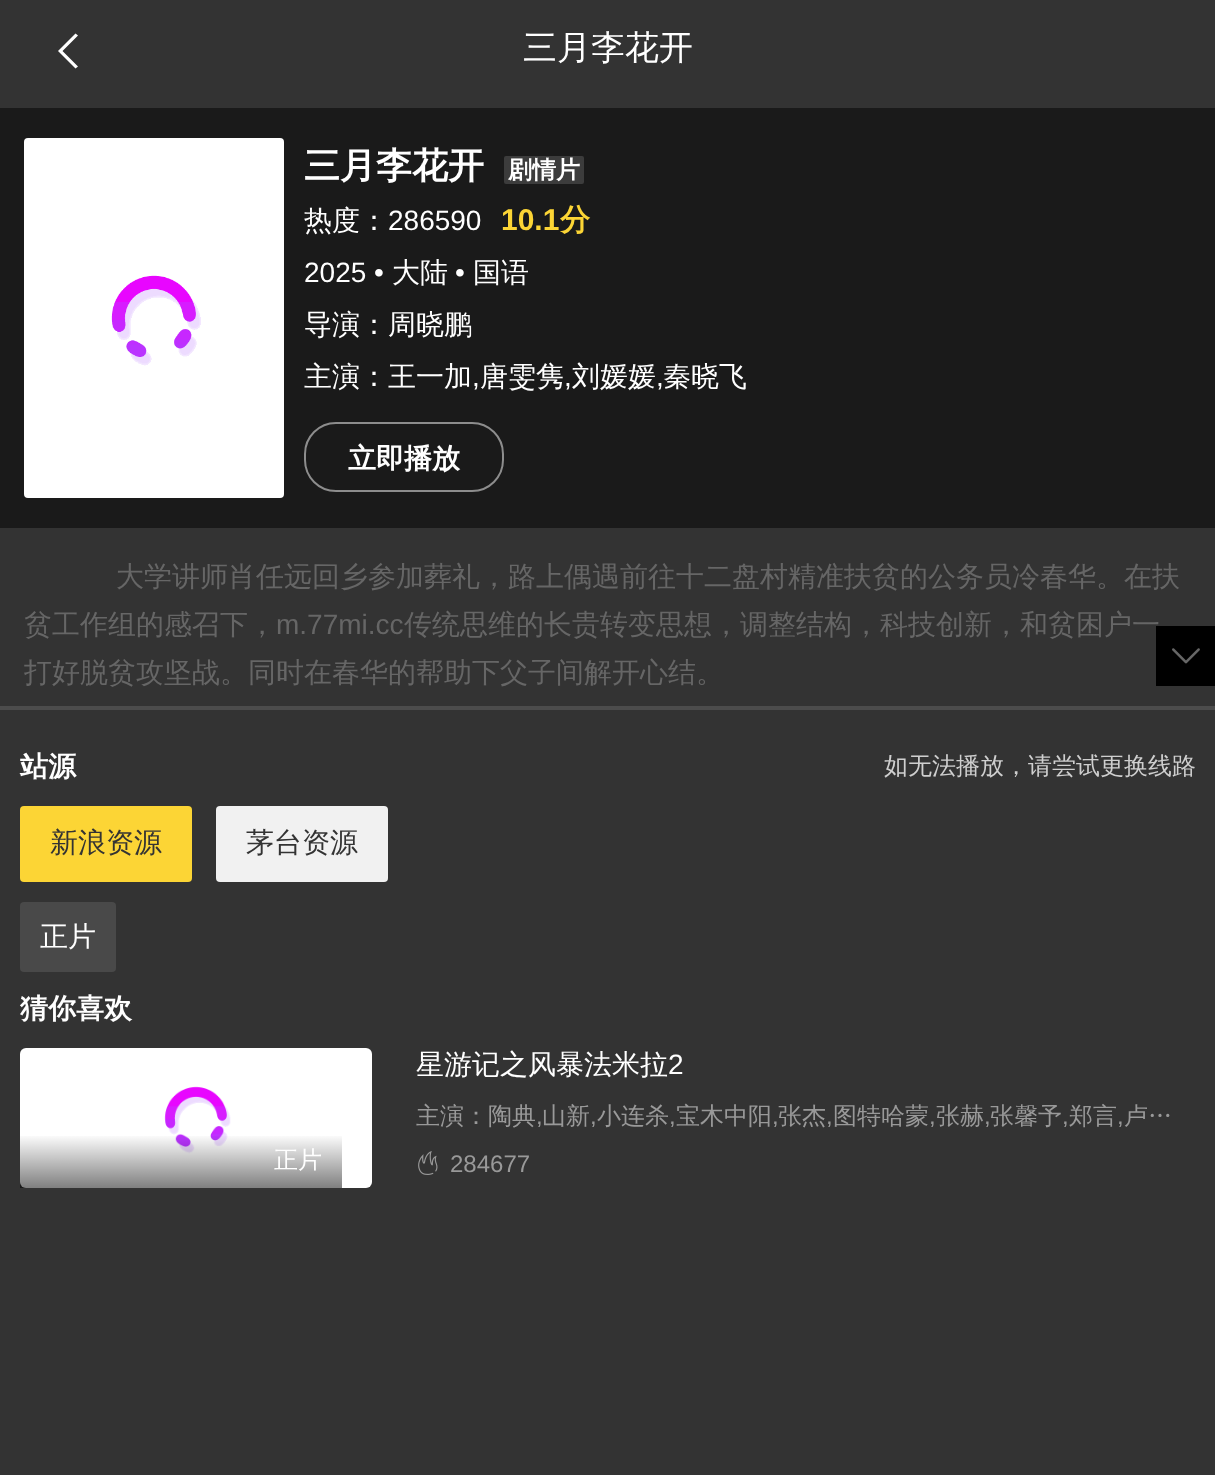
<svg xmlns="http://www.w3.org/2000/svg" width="1215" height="1475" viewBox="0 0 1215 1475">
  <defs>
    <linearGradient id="g1" gradientUnits="userSpaceOnUse" x1="181" y1="1134" x2="181" y2="1188"><stop offset="0" stop-color="#000" stop-opacity="0"/><stop offset="1" stop-color="#000" stop-opacity="0.5"/></linearGradient>
  </defs>
  <rect width="100%" height="100%" fill="#333"/>
  <path d="M75.5 68.5L58 51L75.5 33.5L78 35.5L62.5 51L78 66.5Z" fill="#fff"/>
  <path d="M0 108h1215v420H0z" fill="#1a1a1a"/>
  <image x="24" y="138" width="260" height="360" href="img/1.png"/>
  <rect x="504" y="156" width="80" height="28" rx="2" fill="#3c3c3c"/>
  <rect x="305" y="423" width="198" height="68" rx="31" fill="none" stroke="#8d8d8d" stroke-width="2"/>
  <path d="M0 706h1215v4H0z" fill="#4c4c4c"/>
  <rect x="20" y="806" width="172" height="76" rx="4" fill="#fcd535"/>
  <rect x="216" y="806" width="172" height="76" rx="4" fill="#f1f1f1"/>
  <rect x="20" y="902" width="96" height="70" rx="4" fill="#494949"/>
  <image x="20" y="1048" width="352" height="140" href="img/3.png"/>
  <path d="M20 1136h322v52H20z" fill="url(#g1)"/>
  <image x="418" y="1151" width="20" height="24" href="img/4.png"/>
  <text x="523" y="59" font-family="WenQuanYi Zen Hei" font-size="34" font-weight="500" fill="#fff">三月李花开</text>
  <text x="304" y="178" font-family="WenQuanYi Zen Hei" font-size="36" font-weight="bold" fill="#fff">三月李花开</text>
  <text x="508" y="178" font-family="WenQuanYi Zen Hei" font-size="24" font-weight="bold" fill="#fff">剧情片</text>
  <text x="304" y="230" font-family="WenQuanYi Zen Hei" font-size="28" font-weight="500" fill="#fff">热度：</text>
  <text x="388" y="230" font-family="Liberation Sans" font-size="28" fill="#fff">286590</text>
  <text x="501" y="230" font-family="Liberation Sans" font-size="30" font-weight="bold" fill="#fcd535">10.1</text>
  <text x="560" y="230" font-family="WenQuanYi Zen Hei" font-size="30" font-weight="bold" fill="#fcd535">分</text>
  <text x="304" y="282" font-family="Liberation Sans" font-size="28" fill="#fff">2025 •</text>
  <text x="392" y="282" font-family="WenQuanYi Zen Hei" font-size="28" font-weight="500" fill="#fff">大陆</text>
  <text x="455" y="282" font-family="Liberation Sans" font-size="28" fill="#fff">•</text>
  <g font-family="WenQuanYi Zen Hei" font-size="28" font-weight="500" fill="#fff">
    <text x="473" y="282">国语</text>
    <text x="304" y="334">导演：周晓鹏</text>
    <text x="304" y="386">主演：王一加</text>
  </g>
  <text x="472" y="386" font-family="Liberation Sans" font-size="28" fill="#fff">,</text>
  <text x="480" y="386" font-family="WenQuanYi Zen Hei" font-size="28" font-weight="500" fill="#fff">唐雯隽</text>
  <text x="564" y="386" font-family="Liberation Sans" font-size="28" fill="#fff">,</text>
  <text x="572" y="386" font-family="WenQuanYi Zen Hei" font-size="28" font-weight="500" fill="#fff">刘媛媛</text>
  <text x="656" y="386" font-family="Liberation Sans" font-size="28" fill="#fff">,</text>
  <text x="663" y="386" font-family="WenQuanYi Zen Hei" font-size="28" font-weight="500" fill="#fff">秦晓飞</text>
  <text x="348" y="468" font-family="WenQuanYi Zen Hei" font-size="28" font-weight="bold" fill="#fff">立即播放</text>
  <g font-family="WenQuanYi Zen Hei" font-size="28" font-weight="500" fill="#666">
    <text x="116" y="586">大学讲师肖任远回乡参加葬礼，路上偶遇前往十二盘村精准扶贫的公务员冷春华。在扶</text>
    <text x="24" y="634">贫工作组的感召下，</text>
  </g>
  <text x="276" y="634" font-family="Liberation Sans" font-size="28" fill="#666">m.77mi.cc</text>
  <text x="404" y="634" font-family="WenQuanYi Zen Hei" font-size="28" font-weight="500" fill="#666">传统思维的长贵转变思想，调整结构，科技创新，和贫困户一</text>
  <path d="M1156 626h59v60H1156z" fill="#000"/>
  <image x="1172" y="648" width="28" height="16" href="img/2.png"/>
  <text x="24" y="682" font-family="WenQuanYi Zen Hei" font-size="28" font-weight="500" fill="#666">打好脱贫攻坚战。同时在春华的帮助下父子间解开心结。</text>
  <text x="20" y="776" font-family="WenQuanYi Zen Hei" font-size="28" font-weight="bold" fill="#fff">站源</text>
  <text x="884" y="774" font-family="WenQuanYi Zen Hei" font-size="24" font-weight="500" fill="#cfcfcf">如无法播放，请尝试更换线路</text>
  <g font-family="WenQuanYi Zen Hei" font-size="28" font-weight="500" fill="#333">
    <text x="50" y="852">新浪资源</text>
    <text x="246" y="852">茅台资源</text>
  </g>
  <text x="40" y="946" font-family="WenQuanYi Zen Hei" font-size="28" font-weight="500" fill="#fff">正片</text>
  <text x="20" y="1018" font-family="WenQuanYi Zen Hei" font-size="28" font-weight="bold" fill="#fff">猜你喜欢</text>
  <text x="274" y="1168" font-family="WenQuanYi Zen Hei" font-size="24" font-weight="500" fill="#fff">正片</text>
  <text x="416" y="1074" font-family="WenQuanYi Zen Hei" font-size="28" font-weight="500" fill="#fff">星游记之风暴法米拉</text>
  <text x="668" y="1074" font-family="Liberation Sans" font-size="28" fill="#fff">2</text>
  <text x="416" y="1124" font-family="WenQuanYi Zen Hei" font-size="24" font-weight="500" fill="#999">主演：陶典</text>
  <text x="536" y="1124" font-family="Liberation Sans" font-size="24" fill="#999">,</text>
  <text x="542" y="1124" font-family="WenQuanYi Zen Hei" font-size="24" font-weight="500" fill="#999">山新</text>
  <text x="590" y="1124" font-family="Liberation Sans" font-size="24" fill="#999">,</text>
  <text x="597" y="1124" font-family="WenQuanYi Zen Hei" font-size="24" font-weight="500" fill="#999">小连杀</text>
  <text x="669" y="1124" font-family="Liberation Sans" font-size="24" fill="#999">,</text>
  <text x="676" y="1124" font-family="WenQuanYi Zen Hei" font-size="24" font-weight="500" fill="#999">宝木中阳</text>
  <text x="772" y="1124" font-family="Liberation Sans" font-size="24" fill="#999">,</text>
  <text x="778" y="1124" font-family="WenQuanYi Zen Hei" font-size="24" font-weight="500" fill="#999">张杰</text>
  <text x="826" y="1124" font-family="Liberation Sans" font-size="24" fill="#999">,</text>
  <text x="833" y="1124" font-family="WenQuanYi Zen Hei" font-size="24" font-weight="500" fill="#999">图特哈蒙</text>
  <text x="929" y="1124" font-family="Liberation Sans" font-size="24" fill="#999">,</text>
  <text x="936" y="1124" font-family="WenQuanYi Zen Hei" font-size="24" font-weight="500" fill="#999">张赫</text>
  <text x="984" y="1124" font-family="Liberation Sans" font-size="24" fill="#999">,</text>
  <text x="990" y="1124" font-family="WenQuanYi Zen Hei" font-size="24" font-weight="500" fill="#999">张馨予</text>
  <text x="1062" y="1124" font-family="Liberation Sans" font-size="24" fill="#999">,</text>
  <text x="1069" y="1124" font-family="WenQuanYi Zen Hei" font-size="24" font-weight="500" fill="#999">郑言</text>
  <text x="1117" y="1124" font-family="Liberation Sans" font-size="24" fill="#999">,</text>
  <text x="1124" y="1124" font-family="WenQuanYi Zen Hei" font-size="24" font-weight="500" fill="#999">卢…</text>
  <text x="450" y="1172" font-family="Liberation Sans" font-size="24" fill="#999">284677</text>
</svg>
